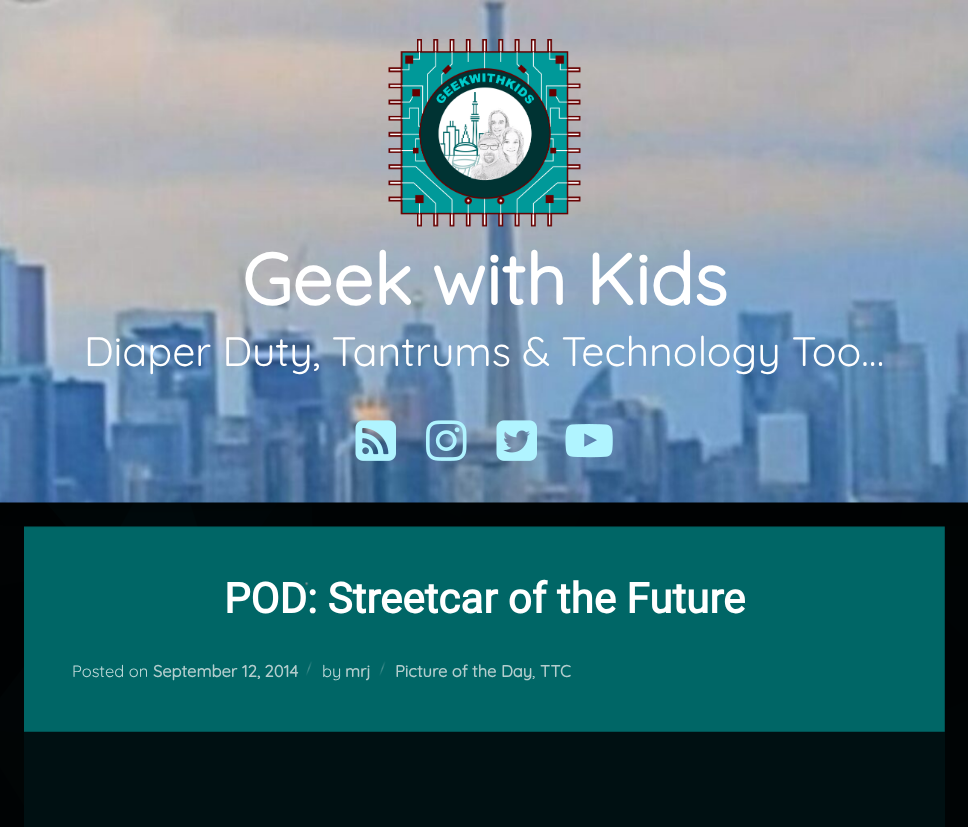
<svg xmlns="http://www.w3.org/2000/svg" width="968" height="827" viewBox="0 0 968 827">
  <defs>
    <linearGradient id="g1" gradientUnits="userSpaceOnUse" x1="312" y1="661" x2="306" y2="676"><stop offset="0" stop-color="#066"/><stop offset="0.5" stop-color="#458f8f"/><stop offset="1" stop-color="#066"/></linearGradient>
    <linearGradient id="g2" gradientUnits="userSpaceOnUse" x1="385" y1="661" x2="379" y2="676"><stop offset="0" stop-color="#066"/><stop offset="0.5" stop-color="#458f8f"/><stop offset="1" stop-color="#066"/></linearGradient>
  </defs>
  <rect width="100%" height="100%" fill="#fff"/>
  <image x="0" y="502" width="968" height="325" href="img/8.png"/>
  <path d="M24 527h921v300H24z" fill="#001012"/>
  <image x="24" y="526" width="921" height="206" href="img/7.png"/>
  <path d="M0 8h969v502H0z" fill="#00000040" filter="blur(7.5px)"/>
  <image x="0" y="0" width="968" height="503" href="img/1.png"/>
  <image x="388" y="39" width="193" height="188" href="img/2.png"/>
  <image x="355" y="420" width="41" height="41" href="img/3.png"/>
  <image x="426" y="420" width="41" height="41" href="img/4.png"/>
  <image x="496" y="420" width="41" height="41" href="img/5.png"/>
  <image x="565" y="424" width="48" height="34" href="img/6.png"/>
  <path d="M311 660.5L312.5 661L306.5 676.5L305.5 676Z" fill="url(#g1)"/>
  <path d="M384.5 660.5L386 661L380 676.5L379 676Z" fill="url(#g2)"/>
  <text x="242" y="305" font-family="Quicksand" font-size="72" font-weight="bold" fill="#fff">Geek with Kids</text>
  <text x="84" y="366" font-family="Quicksand" font-size="41.1" font-weight="300" fill="#fff">Diaper Duty, Tantrums &amp; Technology Too…</text>
  <text x="224" y="613" font-family="Roboto" font-size="42" font-weight="bold" fill="#fff">POD: Streetcar of the Future</text>
  <text x="72" y="677" font-family="Quicksand" font-size="16.5" font-weight="300" fill="#bfd9d9">Posted on</text>
  <text x="153" y="677" font-family="Quicksand" font-size="16.5" font-weight="bold" fill="#b3cdcd">September 12, 2014</text>
  <text x="322" y="677" font-family="Quicksand" font-size="16.5" font-weight="300" fill="#bfd9d9">by</text>
  <g font-family="Quicksand" font-size="16.5" font-weight="bold" fill="#b3cdcd">
    <text x="345" y="677">mrj</text>
    <text x="395" y="677">Picture of the Day</text>
  </g>
  <text x="532" y="677" font-family="Quicksand" font-size="16.5" font-weight="300" fill="#bfd9d9">,</text>
  <text x="540" y="677" font-family="Quicksand" font-size="16.5" font-weight="bold" fill="#b3cdcd">TTC</text>
</svg>
